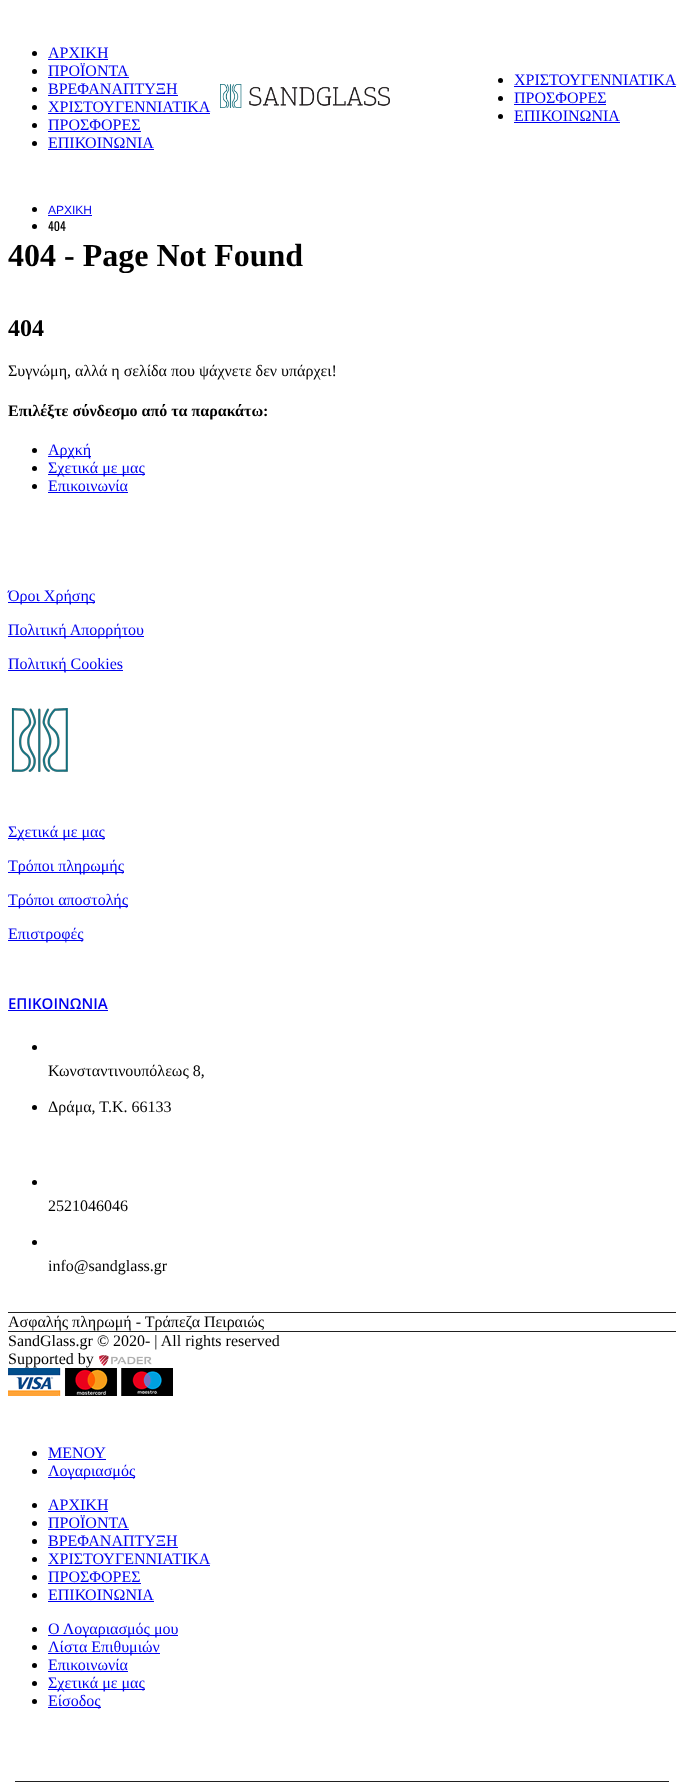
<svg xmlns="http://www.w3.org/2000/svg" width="684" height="1782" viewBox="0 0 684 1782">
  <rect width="100%" height="100%" fill="#fff"/>
  <circle cx="34.5" cy="53.5" r="2.5" fill="#000"/>
  <path d="M48 59h60v1H48z" fill="#00e"/>
  <circle cx="34.5" cy="71.5" r="2.5" fill="#000"/>
  <path d="M48 77h81v1H48z" fill="#00e"/>
  <circle cx="34.5" cy="89.5" r="2.5" fill="#000"/>
  <path d="M48 95h130v1H48z" fill="#00e"/>
  <circle cx="34.5" cy="107.5" r="2.5" fill="#000"/>
  <path d="M48 113h162v1H48z" fill="#00e"/>
  <circle cx="34.5" cy="125.5" r="2.5" fill="#000"/>
  <path d="M48 131h93v1H48z" fill="#00e"/>
  <circle cx="34.5" cy="143.5" r="2.5" fill="#000"/>
  <path d="M48 149h106v1H48z" fill="#00e"/>
  <image x="220" y="84" width="170" height="24" href="img/1.png"/>
  <circle cx="500.5" cy="80.5" r="2.5" fill="#000"/>
  <path d="M514 86h162v1H514z" fill="#00e"/>
  <circle cx="500.5" cy="98.5" r="2.5" fill="#000"/>
  <path d="M514 104h92v1H514z" fill="#00e"/>
  <circle cx="500.5" cy="116.5" r="2.5" fill="#000"/>
  <path d="M514 122h106v1H514z" fill="#00e"/>
  <circle cx="34.5" cy="209.5" r="2.5" fill="#000"/>
  <path d="M48 215h44v1H48z" fill="#00e"/>
  <circle cx="34.5" cy="226.5" r="2.5" fill="#000"/>
  <circle cx="34.5" cy="450.5" r="2.5" fill="#000"/>
  <path d="M48 456h43v1H48z" fill="#00e"/>
  <circle cx="34.5" cy="468.5" r="2.5" fill="#000"/>
  <path d="M48 474h97v1H48z" fill="#00e"/>
  <circle cx="34.5" cy="486.5" r="2.5" fill="#000"/>
  <path d="M48 492h80v1H48z" fill="#00e"/>
  <path d="M8 1331h668v1H8z" fill="#212121"/>
  <path d="M8 602h87v1H8z" fill="#00e"/>
  <path d="M8 636h136v1H8z" fill="#00e"/>
  <path d="M8 670h115v1H8z" fill="#00e"/>
  <image x="11" y="708" width="57" height="64" href="img/2.png"/>
  <path d="M8 838h97v1H8z" fill="#00e"/>
  <path d="M8 872h116v1H8z" fill="#00e"/>
  <path d="M8 906h120v1H8z" fill="#00e"/>
  <path d="M8 940h75v1H8z" fill="#00e"/>
  <path d="M8 1010h100v1H8z" fill="#00e"/>
  <circle cx="34.5" cy="1047.5" r="2.5" fill="#000"/>
  <circle cx="34.5" cy="1107.5" r="2.5" fill="#000"/>
  <circle cx="34.5" cy="1182.5" r="2.5" fill="#000"/>
  <circle cx="34.5" cy="1242.5" r="2.5" fill="#000"/>
  <path d="M8 1312h668v1H8z" fill="#212121"/>
  <path d="M15 1781h654v1H15z" fill="#212121"/>
  <image x="99" y="1355" width="53" height="11" href="img/3.png"/>
  <image x="8" y="1368" width="165" height="28" href="img/4.png"/>
  <circle cx="34.5" cy="1453.5" r="2.5" fill="#000"/>
  <path d="M48 1459h58v1H48z" fill="#00e"/>
  <circle cx="34.5" cy="1471.5" r="2.5" fill="#000"/>
  <path d="M48 1477h87v1H48z" fill="#00e"/>
  <circle cx="34.5" cy="1505.5" r="2.5" fill="#000"/>
  <path d="M48 1511h60v1H48z" fill="#00e"/>
  <circle cx="34.5" cy="1523.5" r="2.5" fill="#000"/>
  <path d="M48 1529h81v1H48z" fill="#00e"/>
  <circle cx="34.5" cy="1541.5" r="2.5" fill="#000"/>
  <path d="M48 1547h130v1H48z" fill="#00e"/>
  <circle cx="34.5" cy="1559.5" r="2.5" fill="#000"/>
  <path d="M48 1565h162v1H48z" fill="#00e"/>
  <circle cx="34.5" cy="1577.5" r="2.5" fill="#000"/>
  <path d="M48 1583h93v1H48z" fill="#00e"/>
  <circle cx="34.5" cy="1595.5" r="2.5" fill="#000"/>
  <path d="M48 1601h106v1H48z" fill="#00e"/>
  <circle cx="34.5" cy="1629.5" r="2.5" fill="#000"/>
  <path d="M48 1635h130v1H48z" fill="#00e"/>
  <circle cx="34.5" cy="1647.5" r="2.5" fill="#000"/>
  <path d="M48 1653h112v1H48z" fill="#00e"/>
  <circle cx="34.5" cy="1665.5" r="2.5" fill="#000"/>
  <path d="M48 1671h80v1H48z" fill="#00e"/>
  <circle cx="34.5" cy="1683.5" r="2.5" fill="#000"/>
  <path d="M48 1689h97v1H48z" fill="#00e"/>
  <circle cx="34.5" cy="1701.5" r="2.5" fill="#000"/>
  <path d="M48 1707h53v1H48z" fill="#00e"/>
  <g font-family="Liberation Serif" font-size="16" fill="#00e">
    <text x="48" y="58">ΑΡΧΙΚΗ</text>
    <text x="48" y="76">ΠΡΟΪΟΝΤΑ</text>
    <text x="48" y="94">ΒΡΕΦΑΝΑΠΤΥΞΗ</text>
    <text x="48" y="112">ΧΡΙΣΤΟΥΓΕΝΝΙΑΤΙΚΑ</text>
    <text x="48" y="130">ΠΡΟΣΦΟΡΕΣ</text>
    <text x="48" y="148">ΕΠΙΚΟΙΝΩΝΙΑ</text>
    <text x="514" y="85">ΧΡΙΣΤΟΥΓΕΝΝΙΑΤΙΚΑ</text>
    <text x="514" y="103">ΠΡΟΣΦΟΡΕΣ</text>
    <text x="514" y="121">ΕΠΙΚΟΙΝΩΝΙΑ</text>
  </g>
  <text x="48" y="214" font-family="Liberation Sans" font-size="12" fill="#00e">ΑΡΧΙΚΗ</text>
  <text x="48" y="231" font-family="Oswald" font-size="12" fill="#000">404</text>
  <text x="8" y="266" font-family="Liberation Serif" font-size="32" font-weight="bold" fill="#000">404 - Page Not Found</text>
  <text x="8" y="336" font-family="Liberation Serif" font-size="24" font-weight="bold" fill="#000">404</text>
  <text x="8" y="376" font-family="Liberation Serif" font-size="16" fill="#000">Συγνώμη, αλλά η σελίδα που ψάχνετε δεν υπάρχει!</text>
  <text x="8" y="416" font-family="Liberation Serif" font-size="16" font-weight="bold" fill="#000">Επιλέξτε σύνδεσμο από τα παρακάτω:</text>
  <g font-family="Liberation Serif" font-size="16" fill="#00e">
    <text x="48" y="455">Αρχκή</text>
    <text x="48" y="473">Σχετικά με μας</text>
    <text x="48" y="491">Επικοινωνία</text>
    <text x="8" y="601">Όροι Χρήσης</text>
    <text x="8" y="635">Πολιτική Απορρήτου</text>
    <text x="8" y="669">Πολιτική Cookies</text>
    <text x="8" y="837">Σχετικά με μας</text>
    <text x="8" y="871">Τρόποι πληρωμής</text>
    <text x="8" y="905">Τρόποι αποστολής</text>
    <text x="8" y="939">Επιστροφές</text>
  </g>
  <text x="8" y="1009" font-family="Open Sans" font-size="15" font-weight="600" fill="#00e">ΕΠΙΚΟΙΝΩΝΙΑ</text>
  <g font-family="Liberation Serif" font-size="16" fill="#000">
    <text x="48" y="1076">Κωνσταντινουπόλεως 8,</text>
    <text x="48" y="1112">Δράμα, Τ.Κ. 66133</text>
    <text x="48" y="1211">2521046046</text>
    <text x="48" y="1271">info@sandglass.gr</text>
    <text x="8" y="1327">Ασφαλής πληρωμή - Τράπεζα Πειραιώς</text>
    <text x="8" y="1346">SandGlass.gr © 2020- | All rights reserved</text>
    <text x="8" y="1364">Supported by</text>
  </g>
  <g font-family="Liberation Serif" font-size="16" fill="#00e">
    <text x="48" y="1458">ΜΕΝΟΥ</text>
    <text x="48" y="1476">Λογαριασμός</text>
    <text x="48" y="1510">ΑΡΧΙΚΗ</text>
    <text x="48" y="1528">ΠΡΟΪΟΝΤΑ</text>
    <text x="48" y="1546">ΒΡΕΦΑΝΑΠΤΥΞΗ</text>
    <text x="48" y="1564">ΧΡΙΣΤΟΥΓΕΝΝΙΑΤΙΚΑ</text>
    <text x="48" y="1582">ΠΡΟΣΦΟΡΕΣ</text>
    <text x="48" y="1600">ΕΠΙΚΟΙΝΩΝΙΑ</text>
    <text x="48" y="1634">Ο Λογαριασμός μου</text>
    <text x="48" y="1652">Λίστα Επιθυμιών</text>
    <text x="48" y="1670">Επικοινωνία</text>
    <text x="48" y="1688">Σχετικά με μας</text>
    <text x="48" y="1706">Είσοδος</text>
  </g>
</svg>
